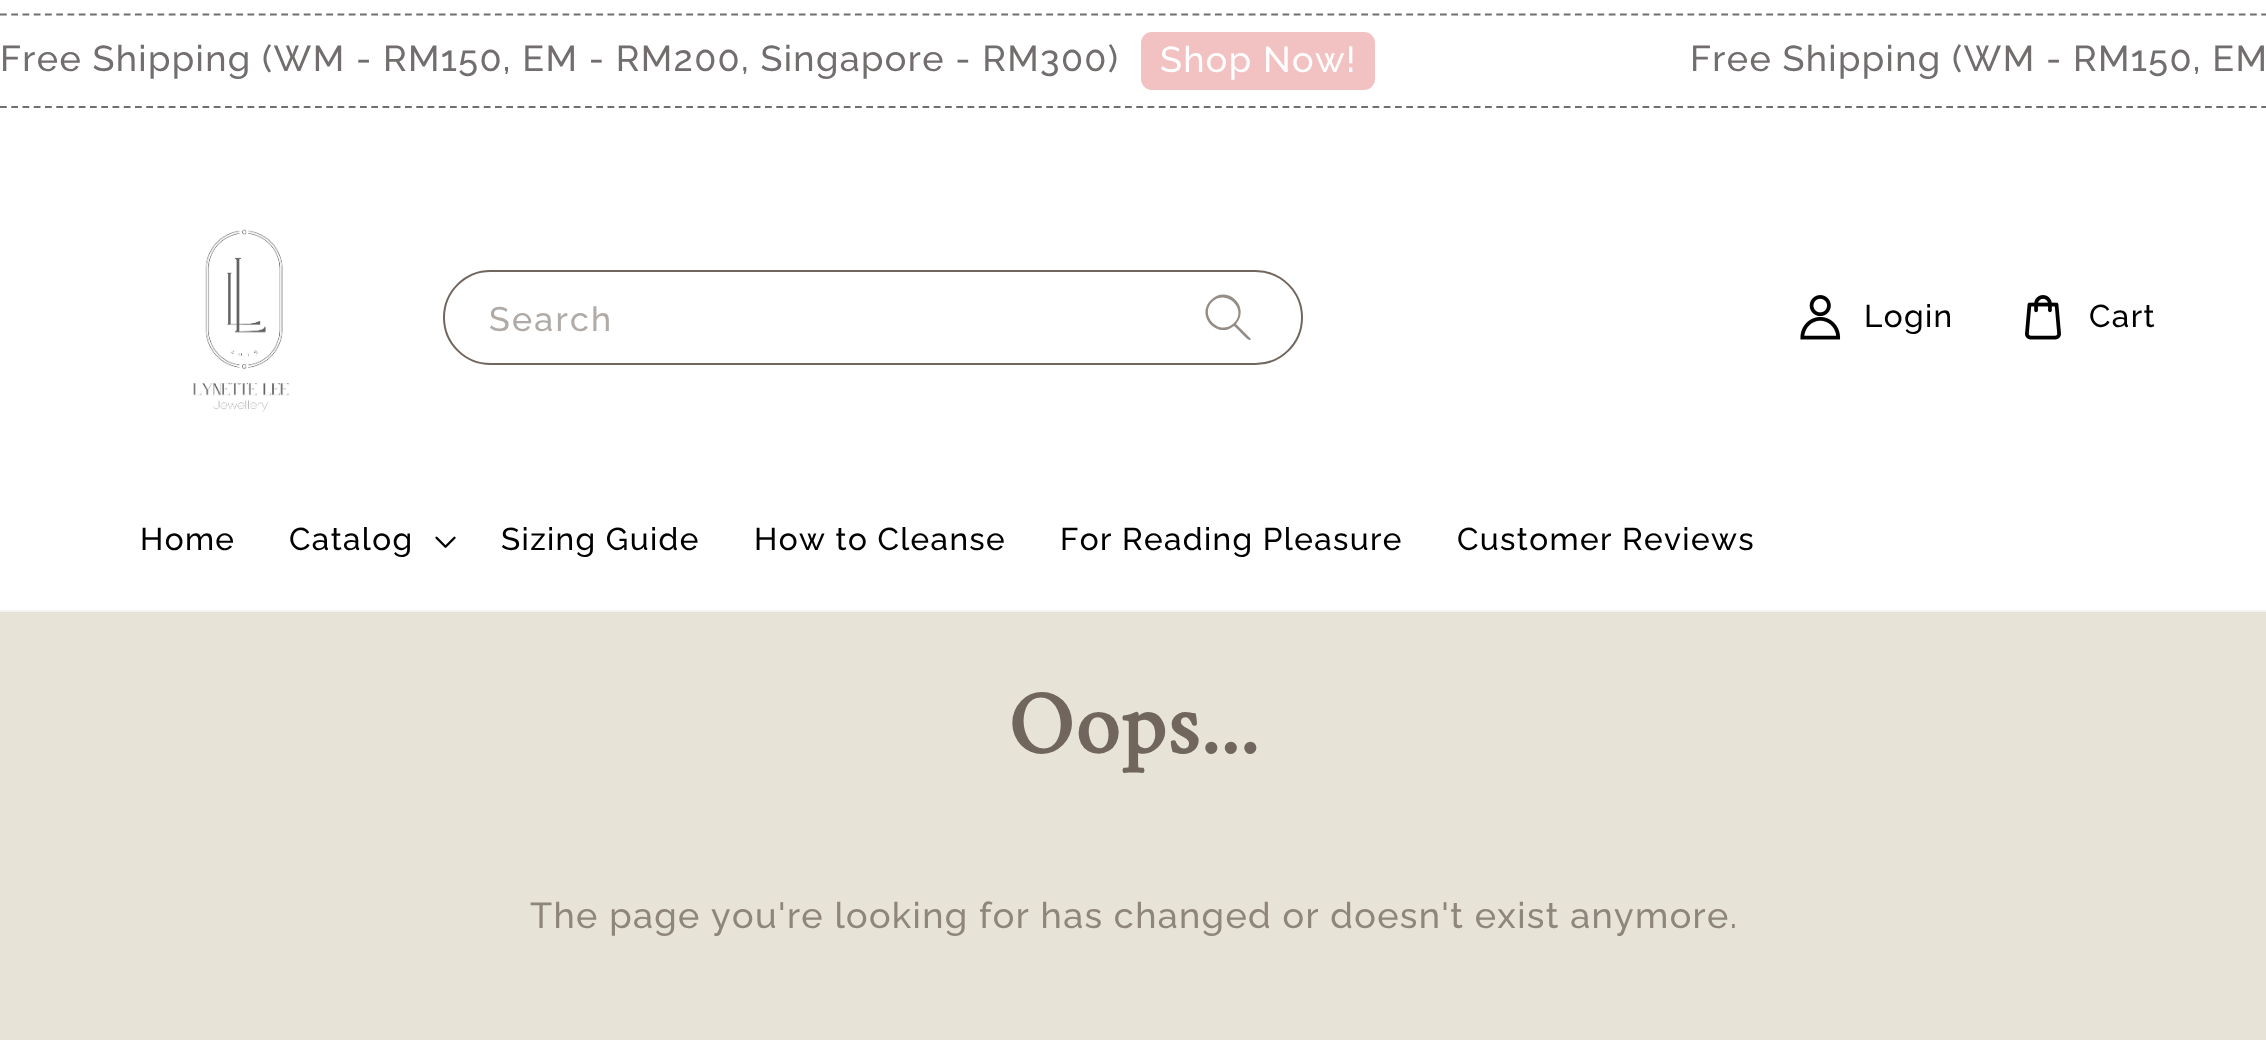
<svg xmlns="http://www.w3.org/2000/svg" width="2266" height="1040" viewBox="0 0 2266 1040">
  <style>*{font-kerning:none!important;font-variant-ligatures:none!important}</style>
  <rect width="100%" height="100%" fill="#e7e4d7"/>
  <path d="M0 0h2266v610H0z" fill="#fff"/>
  <path d="M0 14.5H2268" fill="none" stroke="#726e6e" stroke-width="2.2" stroke-dasharray="6.75 4.5"/>
  <path d="M0 107H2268" fill="none" stroke="#726e6e" stroke-width="2.2" stroke-dasharray="6.75 4.5"/>
  <rect x="1141" y="32" width="234" height="58" rx="11" fill="#f2c1c1"/>
  <path d="M0 610h2266v2H0z" fill="#f4f3f2"/>
  <image x="193" y="229" width="96" height="183" href="img/1.png"/>
  <rect x="444" y="271" width="858" height="93" rx="46.5" fill="none" stroke="#70665d" stroke-width="2"/>
  <path d="M1234 323C1220 337 1199 316 1212 302C1226 288 1248 309 1234 323ZM1234 326C1217 340 1195 315 1211 300C1227 284 1251 307 1236 324L1251 339L1250 340C1248 341 1237 328 1234 326Z" fill="#948c86" fill-rule="evenodd"/>
  <image x="1800" y="295" width="41" height="45" href="img/2.png"/>
  <image x="2025" y="295" width="36" height="45" href="img/3.png"/>
  <image x="435" y="536" width="21" height="12" href="img/4.png"/>
  <text x="0" y="71" font-family="Raleway" font-size="36" font-weight="500" letter-spacing="1.35" fill="#726e6e">Free Shipping (WM - RM150, EM - RM200, Singapore - RM300)</text>
  <text x="1160" y="72" font-family="Raleway" font-size="36" font-weight="500" letter-spacing="1.35" fill="#fffefe">Shop Now!</text>
  <text x="1690" y="71" font-family="Raleway" font-size="36" font-weight="500" letter-spacing="1.35" fill="#726e6e">Free Shipping (WM - RM150, EM</text>
  <text x="489" y="331" font-family="Raleway" font-size="34" font-weight="500" letter-spacing="2.25" fill="#b0aba6">Search</text>
  <g font-family="Raleway" font-size="31.5" font-weight="500" letter-spacing="1.35" fill="#000">
    <text x="1864" y="327">Login</text>
    <text x="2089" y="327">Cart</text>
    <text x="140" y="550">Home</text>
    <text x="289" y="550">Catalog</text>
    <text x="501" y="550">Sizing Guide</text>
    <text x="754" y="550">How to Cleanse</text>
    <text x="1060" y="550">For Reading Pleasure</text>
    <text x="1457" y="550">Customer Reviews</text>
  </g>
  <text x="1008" y="753" font-family="Amiri" font-size="90" font-weight="bold" letter-spacing="1.35" fill="#70665d">Oops...</text>
  <text x="530" y="928" font-family="Raleway" font-size="36" font-weight="500" letter-spacing="1.35" fill="#8e867c">The page you're looking for has changed or doesn't exist anymore.</text>
</svg>
